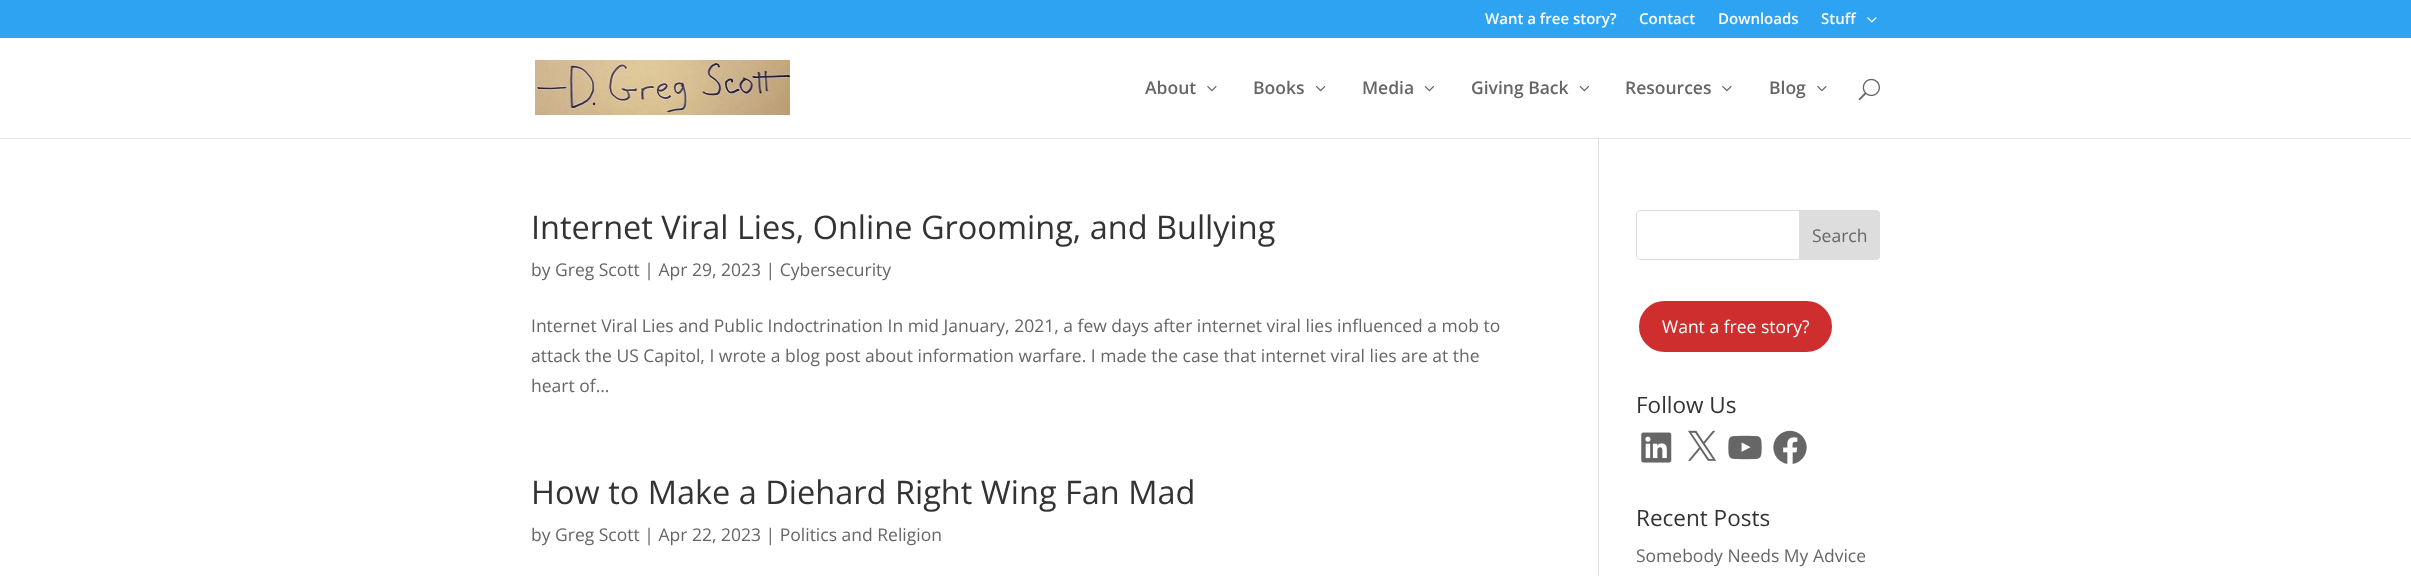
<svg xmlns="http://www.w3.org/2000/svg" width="2411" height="576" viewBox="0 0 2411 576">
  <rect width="100%" height="100%" fill="#fff"/>
  <path d="M0 138h2411v1H0z" fill="#e6e6e6"/>
  <path d="M0 0h2411v38H0z" fill="#2ea3f2"/>
  <image x="1867" y="17" width="10" height="6" href="img/1.png"/>
  <image x="535" y="60" width="255" height="55" href="img/2.png"/>
  <image x="1207" y="86" width="10" height="6" href="img/3.png"/>
  <image x="1316" y="86" width="10" height="6" href="img/4.png"/>
  <image x="1424" y="86" width="10" height="6" href="img/5.png"/>
  <image x="1579" y="86" width="10" height="6" href="img/5.png"/>
  <image x="1722" y="86" width="10" height="6" href="img/3.png"/>
  <image x="1817" y="86" width="10" height="6" href="img/3.png"/>
  <image x="1858" y="78" width="22" height="23" href="img/6.png"/>
  <path d="M1598 138h1v438H1598z" fill="#e2e2e2"/>
  <path d="M1598 138h1v1H1598z" fill="#cbcbcb"/>
  <rect x="1636.5" y="210.5" width="243" height="49" rx="3.5" fill="none" stroke="#ddd"/>
  <path d="M1799.5 210.5H1876C1878 210.5 1879.5 212 1879.5 214V256C1879.5 258 1878 259.5 1876 259.5H1799.5Z" fill="#ddd" stroke="#ddd"/>
  <rect x="1637.5" y="299.5" width="196" height="54" rx="27" fill="#cf2e2e" stroke="#fff" stroke-width="3"/>
  <image x="1641" y="432" width="31" height="31" href="img/7.png"/>
  <image x="1688" y="430" width="29" height="31" href="img/8.png"/>
  <image x="1728" y="435" width="34" height="25" href="img/9.png"/>
  <image x="1773" y="430" width="34" height="34" href="img/10.png"/>
  <g font-family="Open Sans" font-size="15" font-weight="600" fill="#fff">
    <text x="1485" y="24">Want a free story?</text>
    <text x="1639" y="24">Contact</text>
    <text x="1718" y="24">Downloads</text>
    <text x="1821" y="24">Stuff</text>
  </g>
  <g font-family="Open Sans" font-size="17.5" font-weight="600" fill="#666">
    <text x="1145" y="94">About</text>
    <text x="1253" y="94">Books</text>
    <text x="1362" y="94">Media</text>
    <text x="1471" y="94">Giving Back</text>
    <text x="1625" y="94">Resources</text>
    <text x="1769" y="94">Blog</text>
  </g>
  <text x="531" y="239" font-family="Open Sans" font-size="32.5" fill="#333">Internet Viral Lies, Online Grooming, and Bullying</text>
  <g font-family="Open Sans" font-size="17.5" fill="#666">
    <text x="531" y="276">by Greg Scott | Apr 29, 2023 | Cybersecurity</text>
    <text x="531" y="332">Internet Viral Lies and Public Indoctrination In mid January, 2021, a few days after internet viral lies influenced a mob to</text>
    <text x="531" y="362">attack the US Capitol, I wrote a blog post about information warfare. I made the case that internet viral lies are at the</text>
    <text x="531" y="392">heart of...</text>
  </g>
  <text x="531" y="504" font-family="Open Sans" font-size="32.5" fill="#333">How to Make a Diehard Right Wing Fan Mad</text>
  <g font-family="Open Sans" font-size="17.5" fill="#666">
    <text x="531" y="541">by Greg Scott | Apr 22, 2023 | Politics and Religion</text>
    <text x="1812" y="242">Search</text>
  </g>
  <text x="1662" y="333" font-family="Open Sans" font-size="17.5" fill="#fff">Want a free story?</text>
  <g font-family="Open Sans" font-size="22.5" fill="#333">
    <text x="1636" y="413">Follow Us</text>
    <text x="1636" y="526">Recent Posts</text>
  </g>
  <text x="1636" y="562" font-family="Open Sans" font-size="17.5" fill="#666">Somebody Needs My Advice</text>
</svg>
